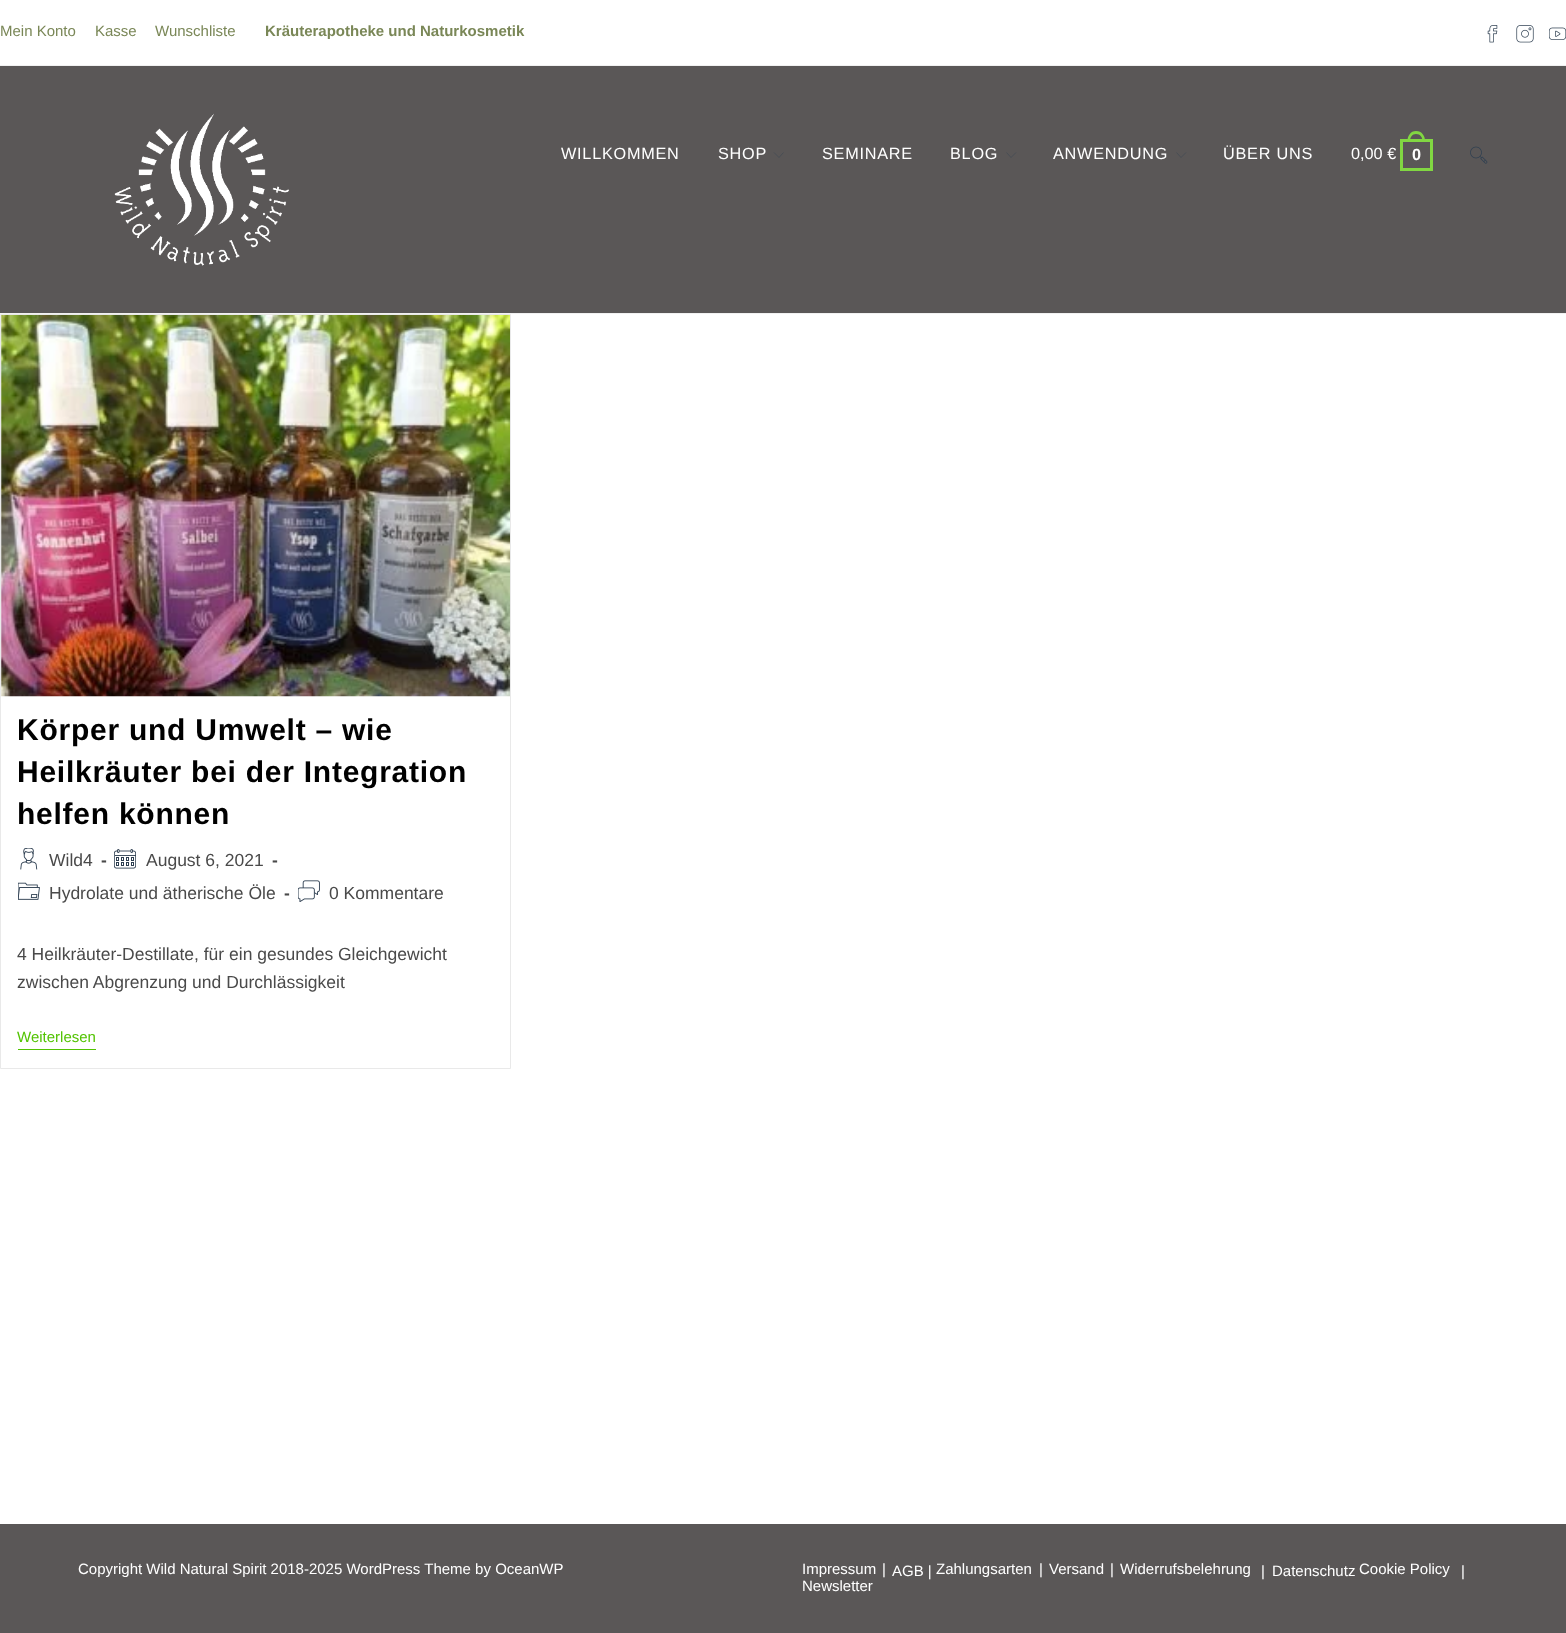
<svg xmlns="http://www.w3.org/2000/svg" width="1566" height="1633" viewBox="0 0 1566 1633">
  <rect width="100%" height="100%" fill="#fff"/>
  <path d="M0 65h1566v1H0z" fill="#f1f1f1"/>
  <image x="1487" y="25" width="11" height="18" href="img/1.png"/>
  <image x="1516" y="25" width="18" height="18" href="img/2.png"/>
  <image x="1549" y="27" width="17" height="13" href="img/3.png"/>
  <path d="M0 66h1566v247H0z" fill="#5a5757"/>
  <path d="M0 313h1566v1H0z" fill="#f1f1f1"/>
  <image x="114" y="113" width="176" height="153" href="img/4.png"/>
  <path d="M783.5 152.5L779 157.5L774 152.5" fill="none" stroke="#2d3e50" stroke-width="0.4"/>
  <path d="M1016 152.5L1011 157.5L1006.5 152.5" fill="none" stroke="#2d3e50" stroke-width="0.4"/>
  <path d="M1186 152.5L1181 157.5L1176.5 152.5" fill="none" stroke="#2d3e50" stroke-width="0.4"/>
  <path d="M1401.5 140.5h30v29H1401.5z" fill="none" stroke="#81d742" stroke-width="3"/>
  <path d="M1416 131C1422 131 1425 136 1425 141H1407.5C1407.5 136 1410.5 131 1416 131ZM1416 134C1420.5 134 1422.5 137.5 1422.5 141H1410C1410 137.5 1412 134 1416 134Z" fill="#81d742" fill-rule="evenodd"/>
  <image x="1470" y="146" width="18" height="18" href="img/5.png"/>
  <path d="M0.5 314.5h510v754H0.5z" fill="none" stroke="#e9e9e9"/>
  <image x="1" y="315" width="509" height="382" href="img/6.png"/>
  <image x="20" y="848" width="18" height="22" href="img/7.png"/>
  <image x="114" y="849" width="22" height="20" href="img/8.png"/>
  <image x="18" y="882" width="22" height="18" href="img/9.png"/>
  <image x="298" y="880" width="22" height="22" href="img/10.png"/>
  <path d="M18 1049h78v1H18z" fill="#52c302"/>
  <path d="M0 1524h1566v109H0z" fill="#5a5757"/>
  <g font-family="Liberation Sans" font-size="15" fill="#7a8757">
    <text x="0" y="36">Mein Konto</text>
    <text x="95" y="36">Kasse</text>
    <text x="155" y="36">Wunschliste</text>
  </g>
  <text x="265" y="36" font-family="Liberation Sans" font-size="15" font-weight="bold" fill="#7a8757">Kräuterapotheke und Naturkosmetik</text>
  <g font-family="Liberation Sans" font-size="16.25" letter-spacing="0.75" fill="#fff">
    <text x="561" y="159">WILLKOMMEN</text>
    <text x="718" y="159">SHOP</text>
    <text x="822" y="159">SEMINARE</text>
    <text x="950" y="159">BLOG</text>
    <text x="1053" y="159">ANWENDUNG</text>
    <text x="1223" y="159">ÜBER UNS</text>
  </g>
  <text x="1351" y="159" font-family="Liberation Sans" font-size="16.25" fill="#fff">0,00 €</text>
  <text x="1412" y="160" font-family="Liberation Sans" font-size="16.25" font-weight="bold" fill="#fff">0</text>
  <g font-family="Liberation Sans" font-size="30" font-weight="bold" letter-spacing="0.75" fill="#000">
    <text x="17" y="740">Körper und Umwelt – wie</text>
    <text x="17" y="782">Heilkräuter bei der Integration</text>
    <text x="17" y="824">helfen können</text>
  </g>
  <text x="49" y="866" font-family="Liberation Sans" font-size="17.5" fill="#4a4a4a">Wild4</text>
  <text x="101" y="866" font-family="Liberation Sans" font-size="17.5" font-weight="bold" fill="#4a4a4a">-</text>
  <text x="146" y="866" font-family="Liberation Sans" font-size="17.5" fill="#4a4a4a">August 6, 2021</text>
  <text x="272" y="866" font-family="Liberation Sans" font-size="17.5" font-weight="bold" fill="#4a4a4a">-</text>
  <text x="49" y="899" font-family="Liberation Sans" font-size="17.5" fill="#4a4a4a">Hydrolate und ätherische Öle</text>
  <text x="284" y="899" font-family="Liberation Sans" font-size="17.5" font-weight="bold" fill="#4a4a4a">-</text>
  <g font-family="Liberation Sans" font-size="17.5" fill="#4a4a4a">
    <text x="329" y="899">0 Kommentare</text>
    <text x="17" y="960">4 Heilkräuter-Destillate, für ein gesundes Gleichgewicht</text>
    <text x="17" y="988">zwischen Abgrenzung und Durchlässigkeit</text>
  </g>
  <text x="17" y="1042" font-family="Liberation Sans" font-size="15" fill="#52c302">Weiterlesen</text>
  <g font-family="Liberation Sans" font-size="15" fill="#fff">
    <text x="78" y="1574">Copyright Wild Natural Spirit 2018-2025 WordPress Theme by OceanWP</text>
    <text x="802" y="1574">Impressum</text>
    <text x="882" y="1574">|</text>
    <text x="892" y="1576">AGB |</text>
    <text x="936" y="1574">Zahlungsarten</text>
    <text x="1039" y="1574">|</text>
    <text x="1049" y="1574">Versand</text>
    <text x="1110" y="1574">|</text>
    <text x="1120" y="1574">Widerrufsbelehrung</text>
    <text x="1261" y="1576">|</text>
    <text x="1272" y="1576">Datenschutz</text>
    <text x="1359" y="1574">Cookie Policy</text>
    <text x="1461" y="1576">|</text>
    <text x="802" y="1591">Newsletter</text>
  </g>
</svg>
